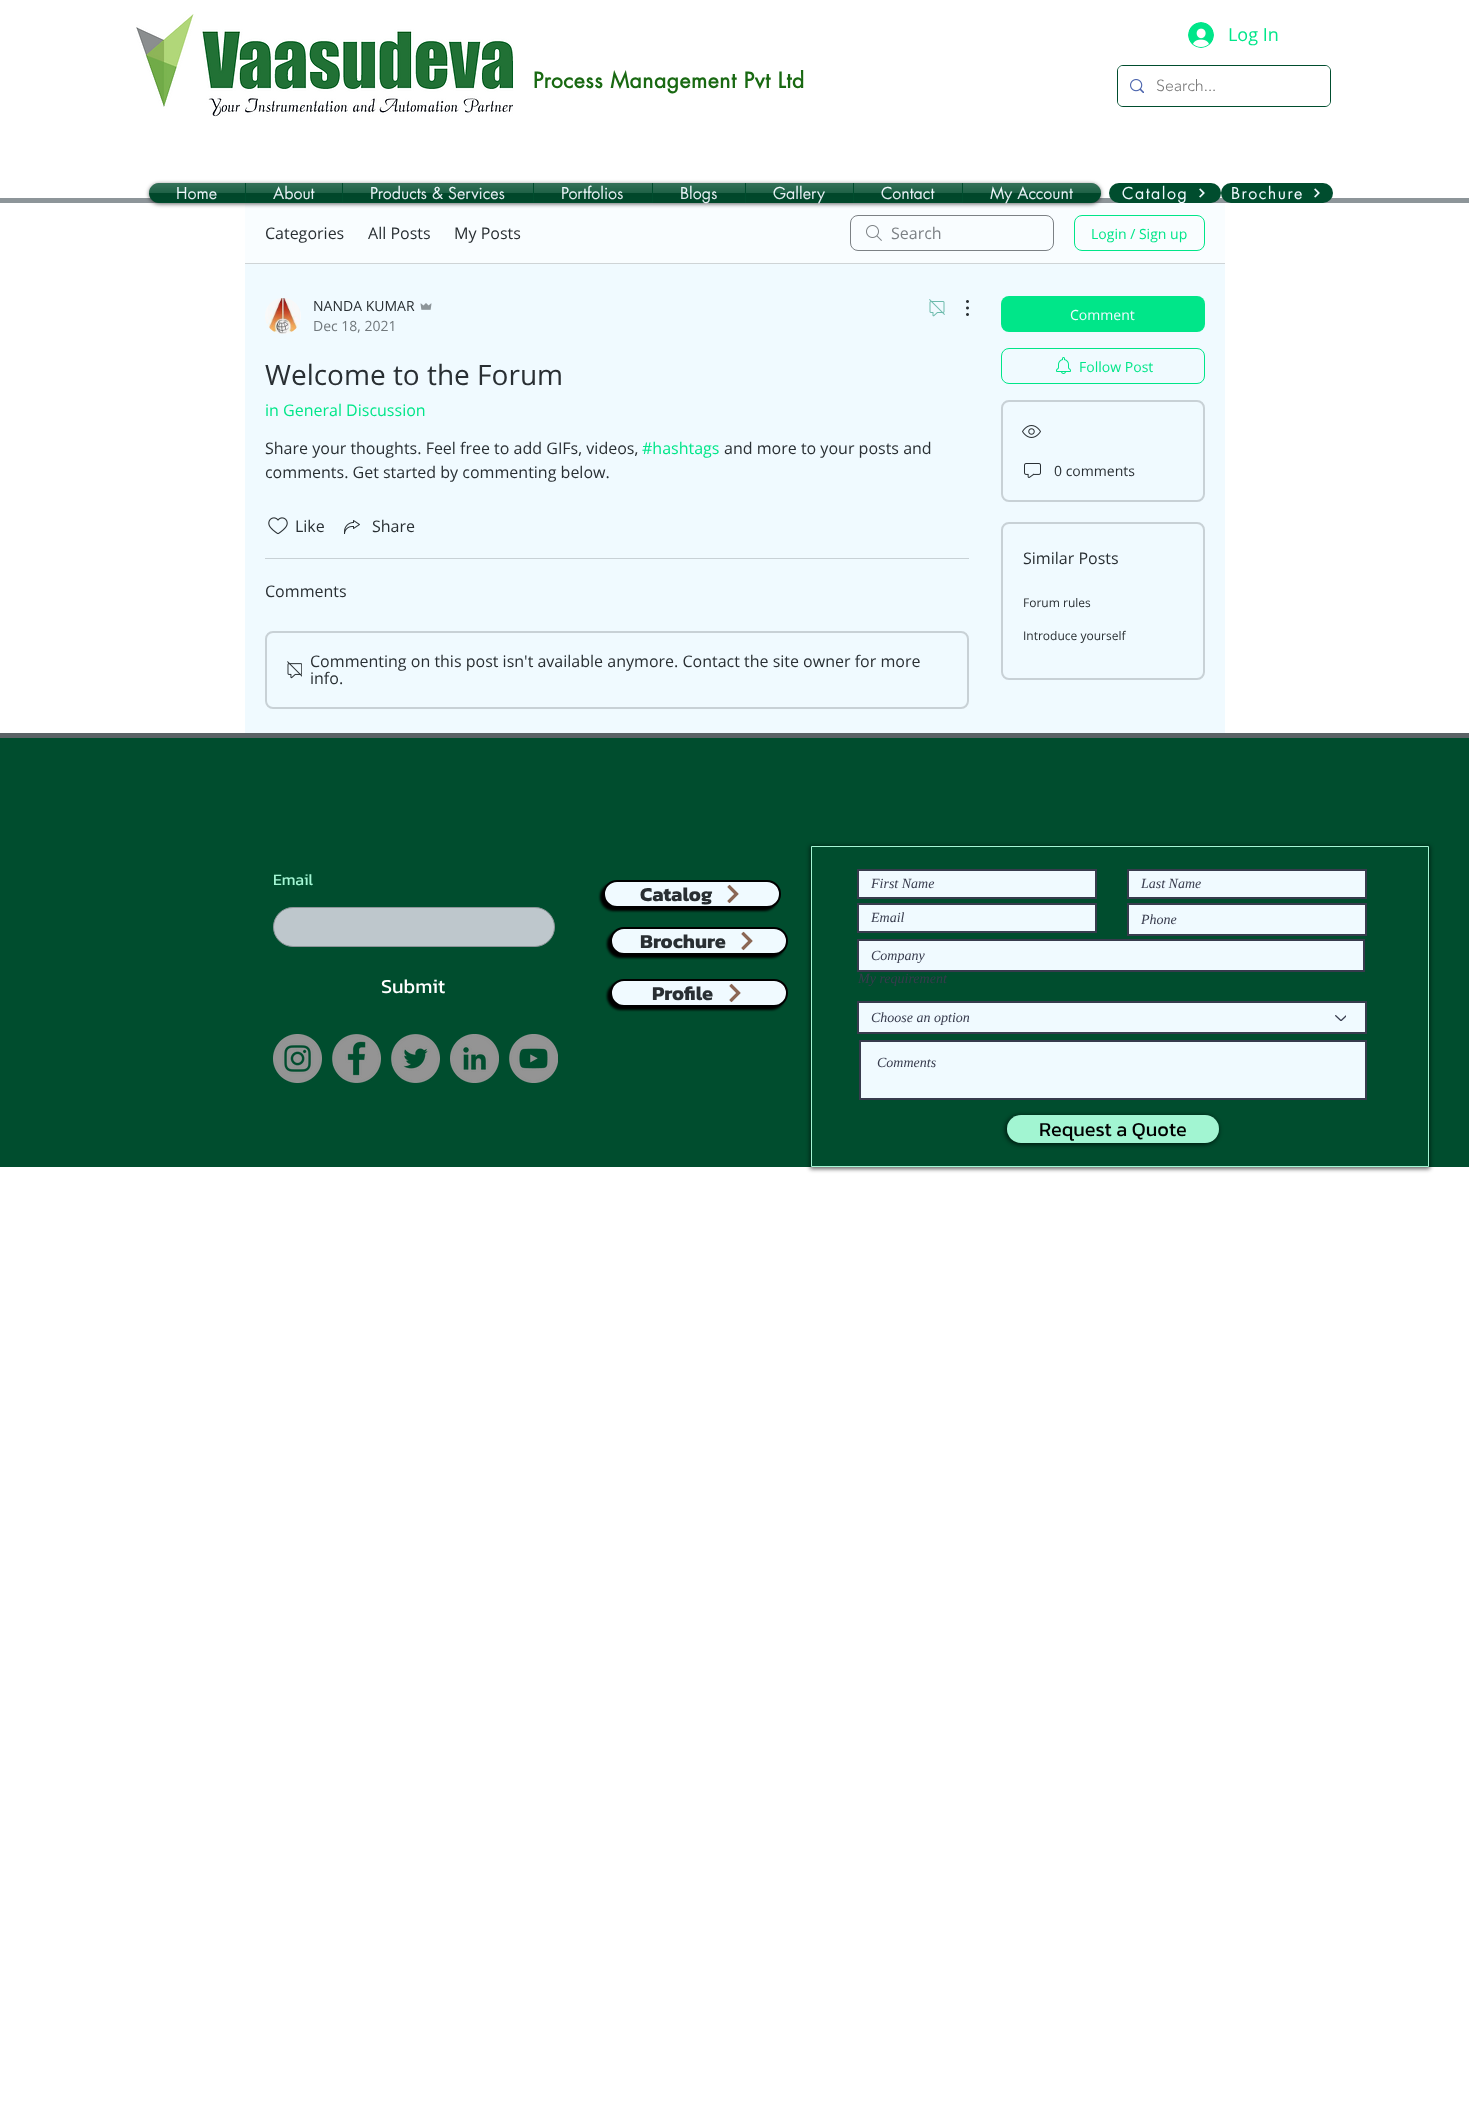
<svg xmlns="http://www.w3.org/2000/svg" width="1469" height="2111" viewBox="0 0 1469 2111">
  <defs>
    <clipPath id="clip1"><path d="M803 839H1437V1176H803ZM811 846H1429V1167H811Z" clip-rule="evenodd"/></clipPath>
    <clipPath id="clip2"><path d="M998 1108H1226V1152H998ZM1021 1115H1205C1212.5 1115 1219 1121.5 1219 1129C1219 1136.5 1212.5 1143 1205 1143H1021C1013.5 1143 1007 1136.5 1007 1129C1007 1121.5 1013.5 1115 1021 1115Z" clip-rule="evenodd"/></clipPath>
  </defs>
  <rect width="100%" height="100%" fill="#fff"/>
  <image x="136" y="14" width="378" height="103" href="img/1.png"/>
  <image x="1188" y="22" width="26" height="26" href="img/2.png"/>
  <rect x="1117.5" y="65.5" width="213" height="41" rx="5.5" fill="none" stroke="#004d2e"/>
  <rect x="1118" y="66" width="212" height="40" rx="5" fill="#fff"/>
  <image x="1130" y="79" width="14" height="14" href="img/3.png"/>
  <path d="M0 198h1469v5H0z" fill="#8d9599"/>
  <path d="M245 203h980v60H245z" fill="#f9fdff"/>
  <rect x="149" y="184" width="952" height="20" rx="10" fill="#00000099" filter="blur(2px)"/>
  <image x="149" y="183" width="952" height="19" href="img/4.png"/>
  <path d="M159 183H245V203H159C153.5 203 149 198.5 149 193C149 187.5 153.5 183 159 183Z" fill="#004d2e"/>
  <path d="M245 183h717v20H245z" fill="#004d2e"/>
  <path d="M962 183H1091C1096.5 183 1101 187.5 1101 193C1101 198.5 1096.5 203 1091 203H962Z" fill="#004d2e"/>
  <rect x="1109" y="183" width="112" height="20" rx="10" fill="#004d2e"/>
  <image x="1199" y="188" width="6" height="10" href="img/13.png"/>
  <rect x="1221" y="183" width="112" height="20" rx="10" fill="#004d2e"/>
  <image x="1314" y="188" width="6" height="10" href="img/13.png"/>
  <path d="M245 263h980v1H245z" fill="#cfd4d6"/>
  <image x="866" y="225" width="16" height="16" href="img/14.png"/>
  <rect x="850.5" y="215.5" width="203" height="35" rx="7.5" fill="none" stroke="#7c8185"/>
  <rect x="1074.5" y="215.5" width="130" height="35" rx="7.5" fill="none" stroke="#00e689"/>
  <path d="M245 264h980v469H245z" fill="#f0faff"/>
  <image x="265" y="298" width="36" height="36" href="img/15.png"/>
  <image x="420" y="303" width="12" height="7" href="img/16.png"/>
  <image x="929" y="299" width="16" height="18" href="img/17.png"/>
  <image x="966" y="300" width="3" height="16" href="img/18.png"/>
  <image x="268" y="517" width="20" height="18" href="img/19.png"/>
  <image x="344" y="520" width="16" height="14" href="img/20.png"/>
  <path d="M265 558h704v1H265z" fill="#c8d1d6"/>
  <rect x="266" y="632" width="702" height="76" rx="7" fill="none" stroke="#c8d1d6" stroke-width="2"/>
  <image x="287" y="661" width="15" height="18" href="img/21.png"/>
  <rect x="1001" y="296" width="204" height="36" rx="8" fill="#00e689"/>
  <rect x="1001.5" y="348.5" width="203" height="35" rx="7.5" fill="none" stroke="#00e689"/>
  <image x="1056" y="357" width="15" height="17" href="img/22.png"/>
  <rect x="1002" y="401" width="202" height="100" rx="7" fill="none" stroke="#c8d1d6" stroke-width="2"/>
  <image x="1022" y="425" width="19" height="13" href="img/23.png"/>
  <image x="1024" y="463" width="17" height="15" href="img/24.png"/>
  <rect x="1002" y="523" width="202" height="156" rx="7" fill="none" stroke="#c8d1d6" stroke-width="2"/>
  <path d="M0 738h1469v429H0z" fill="#004d2e"/>
  <path d="M0 733h1469v5H0z" fill="#5b6266"/>
  <rect x="273.5" y="907.5" width="281" height="39" rx="19.5" fill="#bec7cc" stroke="#8d9599"/>
  <rect x="600" y="883" width="178" height="28" rx="14" fill="#000" filter="blur(1px)"/>
  <rect x="604" y="881" width="176" height="26" rx="13" fill="#f0faff" stroke="#000" stroke-width="2"/>
  <image x="727" y="884" width="12" height="20" href="img/25.png"/>
  <g clip-path="url(#clip1)">
    <path d="M810 846h620v323H810z" fill="#00000099" filter="blur(2px)"/>
  </g>
  <path d="M811.5 846.5h617v320H811.5z" fill="none" stroke="#a4f7d5"/>
  <path d="M858 870h238v28H858z" fill="#f0faff" stroke="#373b4d" stroke-width="2"/>
  <path d="M1128 870h238v28H1128z" fill="#f0faff" stroke="#373b4d" stroke-width="2"/>
  <path d="M858 904h238v28H858z" fill="#f0faff" stroke="#373b4d" stroke-width="2"/>
  <path d="M1128 904h238v31H1128z" fill="#f0faff" stroke="#373b4d" stroke-width="2"/>
  <path d="M858 940h506v31H858z" fill="#f0faff" stroke="#373b4d" stroke-width="2"/>
  <path d="M858 1002h508v31H858z" fill="#f0faff" stroke="#373b4d" stroke-width="2"/>
  <image x="1335" y="1015" width="11" height="6" href="img/26.png"/>
  <path d="M860 1041h506v58H860z" fill="#f0faff" stroke="#373b4d" stroke-width="2"/>
  <g clip-path="url(#clip2)">
    <rect x="1005" y="1115" width="214" height="30" rx="15" fill="#00000099" filter="blur(2px)"/>
  </g>
  <rect x="1007" y="1115" width="212" height="28" rx="14" fill="#a4f7d5fc"/>
  <rect x="607" y="930" width="178" height="28" rx="14" fill="#000" filter="blur(1px)"/>
  <rect x="611" y="928" width="176" height="26" rx="13" fill="#f0faff" stroke="#000" stroke-width="2"/>
  <image x="741" y="931" width="12" height="20" href="img/25.png"/>
  <rect x="607" y="982" width="178" height="28" rx="14" fill="#000" filter="blur(1px)"/>
  <rect x="611" y="980" width="176" height="26" rx="13" fill="#f0faff" stroke="#000" stroke-width="2"/>
  <image x="729" y="983" width="12" height="20" href="img/25.png"/>
  <image x="273" y="1034" width="49" height="49" href="img/27.png"/>
  <image x="332" y="1034" width="49" height="49" href="img/28.png"/>
  <image x="391" y="1034" width="49" height="49" href="img/29.png"/>
  <image x="450" y="1034" width="49" height="49" href="img/30.png"/>
  <image x="509" y="1034" width="49" height="49" href="img/31.png"/>
  <text x="1228" y="41" font-family="Open Sans" font-size="18" fill="#00e689">Log In</text>
  <text x="533" y="88" font-family="futura" font-size="21" font-weight="bold" letter-spacing="0.6" fill="#196912">Process Management Pvt Ltd</text>
  <text x="1156" y="91" font-family="'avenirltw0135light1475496'" font-size="16" font-weight="300" fill="#787878">Search...</text>
  <text x="176" y="199" font-family="futura" font-size="16" fill="#f0faff">Home</text>
  <image x="149" y="183" width="96" height="19" href="img/5.png"/>
  <text x="273" y="199" font-family="futura" font-size="16" fill="#f0faff">About</text>
  <image x="246" y="183" width="96" height="19" href="img/6.png"/>
  <text x="370" y="199" font-family="futura" font-size="16" fill="#f0faff">Products &amp; Services</text>
  <image x="343" y="183" width="190" height="19" href="img/7.png"/>
  <text x="561" y="199" font-family="futura" font-size="16" fill="#f0faff">Portfolios</text>
  <image x="534" y="183" width="118" height="19" href="img/8.png"/>
  <text x="680" y="199" font-family="futura" font-size="16" fill="#f0faff">Blogs</text>
  <image x="653" y="183" width="92" height="20" href="img/9.png"/>
  <text x="773" y="199" font-family="futura" font-size="16" fill="#f0faff">Gallery</text>
  <image x="746" y="183" width="107" height="20" href="img/10.png"/>
  <text x="881" y="199" font-family="futura" font-size="16" fill="#f0faff">Contact</text>
  <image x="854" y="183" width="108" height="19" href="img/11.png"/>
  <text x="990" y="199" font-family="futura" font-size="16" fill="#f0faff">My Account</text>
  <image x="963" y="183" width="138" height="20" href="img/12.png"/>
  <g font-family="futura" font-size="16" letter-spacing="1.5" fill="#f0faff">
    <text x="1122" y="199">Catalog</text>
    <text x="1231" y="199">Brochure</text>
  </g>
  <g font-family="Open Sans" font-size="16" fill="#292f33">
    <text x="265" y="239">Categories</text>
    <text x="368" y="239">All Posts</text>
    <text x="454" y="239">My Posts</text>
  </g>
  <text x="891" y="239" font-family="Open Sans" font-size="16" fill="#7c8185">Search</text>
  <text x="1091" y="239" font-family="Open Sans" font-size="14" fill="#00e689">Login / Sign up</text>
  <text x="313" y="311" font-family="Open Sans" font-size="14" fill="#292f33">NANDA KUMAR</text>
  <text x="313" y="331" font-family="Open Sans" font-size="14" fill="#71787c">Dec 18, 2021</text>
  <text x="265" y="385" font-family="Open Sans" font-size="28" fill="#292f33">Welcome to the Forum</text>
  <text x="265" y="416" font-family="Open Sans" font-size="16" fill="#00e689">in General Discussion</text>
  <text x="265" y="454" font-family="Open Sans" font-size="16" fill="#292f33">Share your thoughts. Feel free to add GIFs, videos,</text>
  <text x="642" y="454" font-family="Open Sans" font-size="16" fill="#00e689">#hashtags</text>
  <g font-family="Open Sans" font-size="16" fill="#292f33">
    <text x="724" y="454">and more to your posts and</text>
    <text x="265" y="478">comments. Get started by commenting below.</text>
    <text x="295" y="532">Like</text>
    <text x="372" y="532">Share</text>
    <text x="265" y="597">Comments</text>
    <text x="310" y="667">Commenting on this post isn't available anymore. Contact the site owner for more</text>
    <text x="310" y="684">info.</text>
  </g>
  <text x="1070" y="320" font-family="Open Sans" font-size="14" fill="#f0faff">Comment</text>
  <text x="1079" y="372" font-family="Open Sans" font-size="14" fill="#00e689">Follow Post</text>
  <text x="1054" y="476" font-family="Open Sans" font-size="14" fill="#292f33">0 comments</text>
  <text x="1023" y="564" font-family="Open Sans" font-size="16" fill="#292f33">Similar Posts</text>
  <g font-family="Open Sans" font-size="12" fill="#292f33">
    <text x="1023" y="607">Forum rules</text>
    <text x="1023" y="640">Introduce yourself</text>
  </g>
  <text x="273" y="885" font-family="Kanit" font-size="16" fill="#a4f7d5">Email</text>
  <text x="381" y="993" font-family="Kanit" font-size="20" fill="#fff">Submit</text>
  <text x="640" y="901" font-family="Kanit" font-size="20" font-weight="bold" fill="#292f33">Catalog</text>
  <g font-family="Liberation Serif" font-size="14" font-style="italic" fill="#373b4d">
    <text x="871" y="888">First Name</text>
    <text x="1141" y="888">Last Name</text>
    <text x="871" y="922">Email</text>
    <text x="1141" y="924">Phone</text>
    <text x="871" y="960">Company</text>
    <text x="858" y="983">My requirement</text>
    <text x="871" y="1022">Choose an option</text>
    <text x="877" y="1067">Comments</text>
  </g>
  <text x="1039" y="1136" font-family="Kanit" font-size="20" fill="#000">Request a Quote</text>
  <g font-family="Kanit" font-size="20" font-weight="bold" fill="#292f33">
    <text x="640" y="948">Brochure</text>
    <text x="652" y="1000">Profile</text>
  </g>
</svg>
